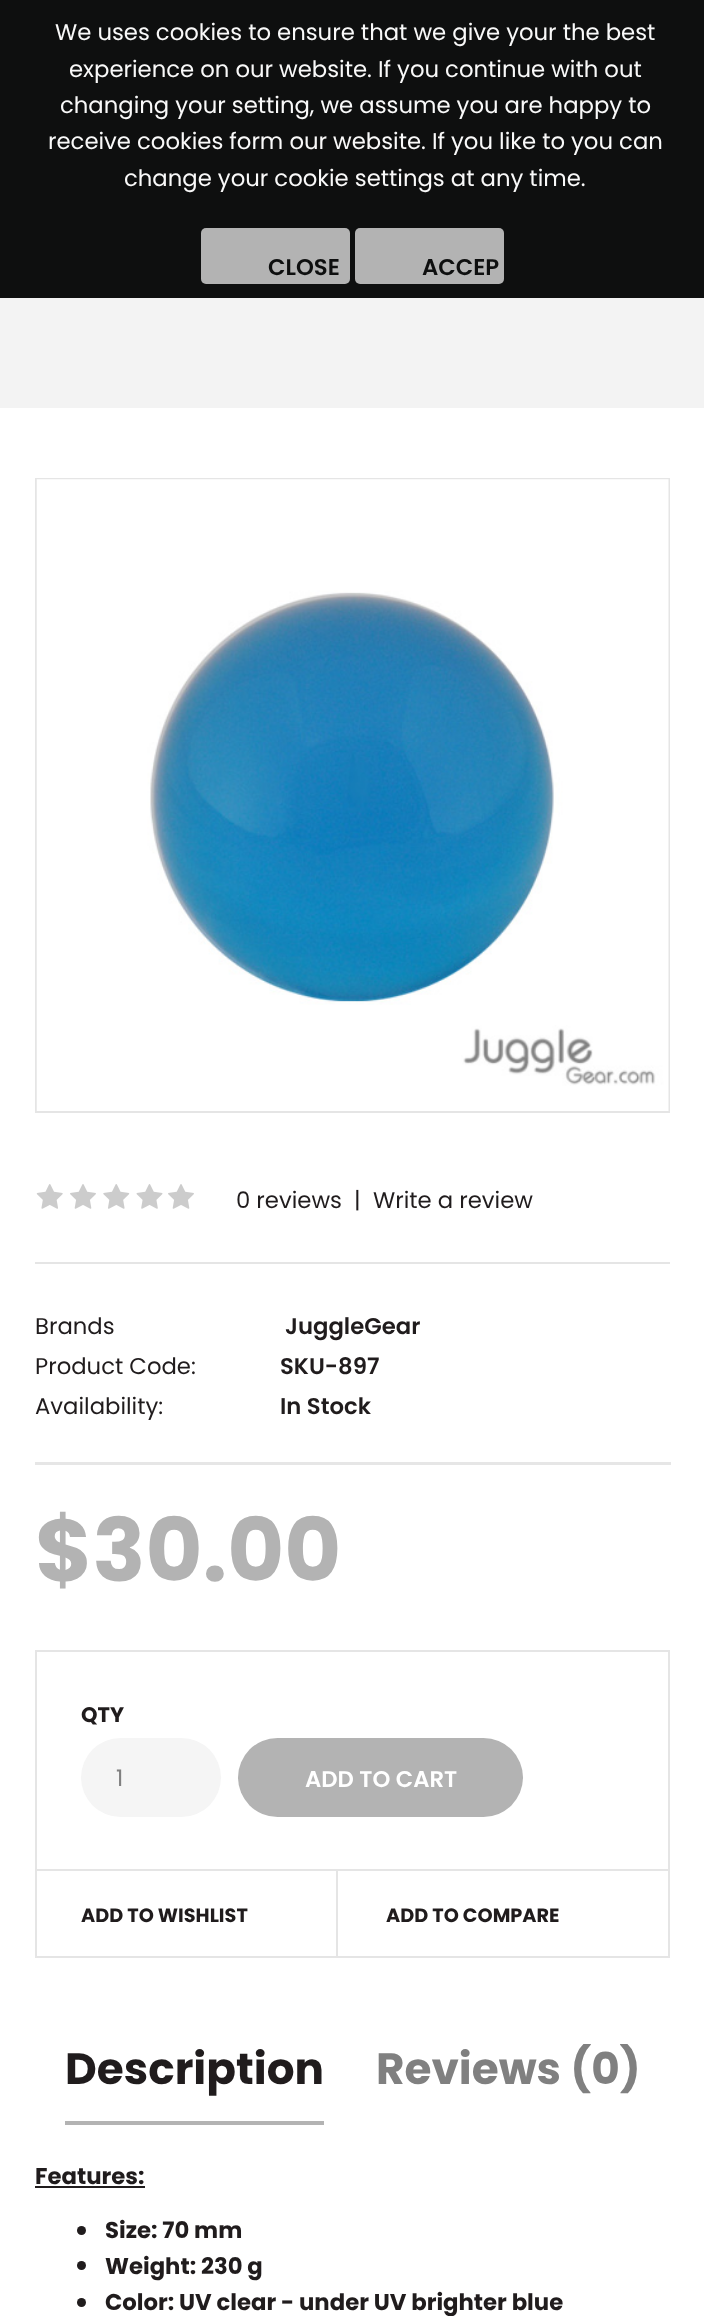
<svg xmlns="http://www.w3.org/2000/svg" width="704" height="2316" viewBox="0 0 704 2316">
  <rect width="100%" height="100%" fill="#fff"/>
  <path d="M0 0h704v298H0z" fill="#0e0f0f"/>
  <rect x="201" y="228" width="149" height="56" rx="5" fill="#b3b3b3"/>
  <rect x="355" y="228" width="149" height="56" rx="5" fill="#b3b3b3"/>
  <path d="M0 298h704v110H0z" fill="#f3f3f3"/>
  <path d="M36 479h633v633H36z" fill="none" stroke="#e5e5e5" stroke-width="2"/>
  <image x="36" y="479" width="633" height="632" href="img/1.png"/>
  <path d="M35 1262h635v2H35z" fill="#e5e5e5"/>
  <image x="36" y="1184" width="27" height="25" href="img/2.png"/>
  <image x="70" y="1184" width="26" height="25" href="img/3.png"/>
  <image x="103" y="1184" width="27" height="25" href="img/4.png"/>
  <image x="136" y="1184" width="27" height="25" href="img/5.png"/>
  <image x="168" y="1184" width="26" height="25" href="img/3.png"/>
  <path d="M35 1462h636v3H35z" fill="#e6e6e6"/>
  <path d="M36 1651h633v306H36z" fill="none" stroke="#e5e5e5" stroke-width="2"/>
  <rect x="81" y="1738" width="140" height="79" rx="39.5" fill="#f5f5f5"/>
  <rect x="238" y="1738" width="285" height="79" rx="39.5" fill="#b3b3b3"/>
  <path d="M37 1869h632v2H37z" fill="#e5e5e5"/>
  <path d="M336 1871h2v86H336z" fill="#e5e5e5"/>
  <path d="M65 2121h259v4H65z" fill="#b3b3b3"/>
  <path d="M35 2186h110v2H35z" fill="#201c1d"/>
  <circle cx="81.5" cy="2230.5" r="4.5" fill="#201c1d"/>
  <circle cx="81.5" cy="2265.5" r="4.5" fill="#201c1d"/>
  <circle cx="81.5" cy="2302.5" r="4.5" fill="#201c1d"/>
  <g font-family="Poppins" font-size="22.75" fill="#f9f9f9">
    <text x="55" y="40">We uses cookies to ensure that we give your the best</text>
    <text x="69" y="77">experience on our website. If you continue with out</text>
    <text x="60" y="113">changing your setting, we assume you are happy to</text>
    <text x="48" y="149">receive cookies form our website. If you like to you can</text>
    <text x="124" y="186">change your cookie settings at any time.</text>
  </g>
  <g font-family="Poppins" font-size="22.75" font-weight="600" fill="#0e0f0f">
    <text x="268" y="275">CLOSE</text>
    <text x="422" y="275">ACCEP</text>
  </g>
  <g font-family="Poppins" font-size="22.75" fill="#201c1d">
    <text x="236" y="1208">0 reviews</text>
    <text x="354" y="1208">|</text>
    <text x="373" y="1208">Write a review</text>
    <text x="35" y="1334">Brands</text>
  </g>
  <text x="285" y="1334" font-family="Poppins" font-size="22.75" font-weight="600" fill="#201c1d">JuggleGear</text>
  <text x="35" y="1374" font-family="Poppins" font-size="22.75" fill="#201c1d">Product Code:</text>
  <text x="280" y="1374" font-family="Poppins" font-size="22.75" font-weight="600" fill="#201c1d">SKU-897</text>
  <text x="35" y="1414" font-family="Poppins" font-size="22.75" fill="#201c1d">Availability:</text>
  <text x="280" y="1414" font-family="Poppins" font-size="22.75" font-weight="600" fill="#201c1d">In Stock</text>
  <text x="35" y="1581" font-family="Poppins" font-size="87.5" font-weight="bold" fill="#b3b3b3">$30.00</text>
  <text x="81" y="1722" font-family="Poppins" font-size="21" font-weight="bold" fill="#201c1d">QTY</text>
  <text x="116" y="1786" font-family="Poppins" font-size="22.75" fill="#808080">1</text>
  <text x="305" y="1787" font-family="Poppins" font-size="22.75" font-weight="600" fill="#fff">ADD TO CART</text>
  <g font-family="Poppins" font-size="19.25" font-weight="bold" fill="#201c1d">
    <text x="81" y="1922">ADD TO WISHLIST</text>
    <text x="386" y="1922">ADD TO COMPARE</text>
  </g>
  <text x="65" y="2084" font-family="Poppins" font-size="43.75" font-weight="bold" fill="#201c1d">Description</text>
  <text x="376" y="2084" font-family="Poppins" font-size="43.75" font-weight="bold" fill="#808080">Reviews (0)</text>
  <g font-family="Poppins" font-size="22.75" font-weight="bold" fill="#201c1d">
    <text x="35" y="2184">Features:</text>
    <text x="105" y="2238">Size: 70 mm</text>
    <text x="105" y="2274">Weight: 230 g</text>
    <text x="105" y="2310">Color: UV clear - under UV brighter blue</text>
  </g>
</svg>
